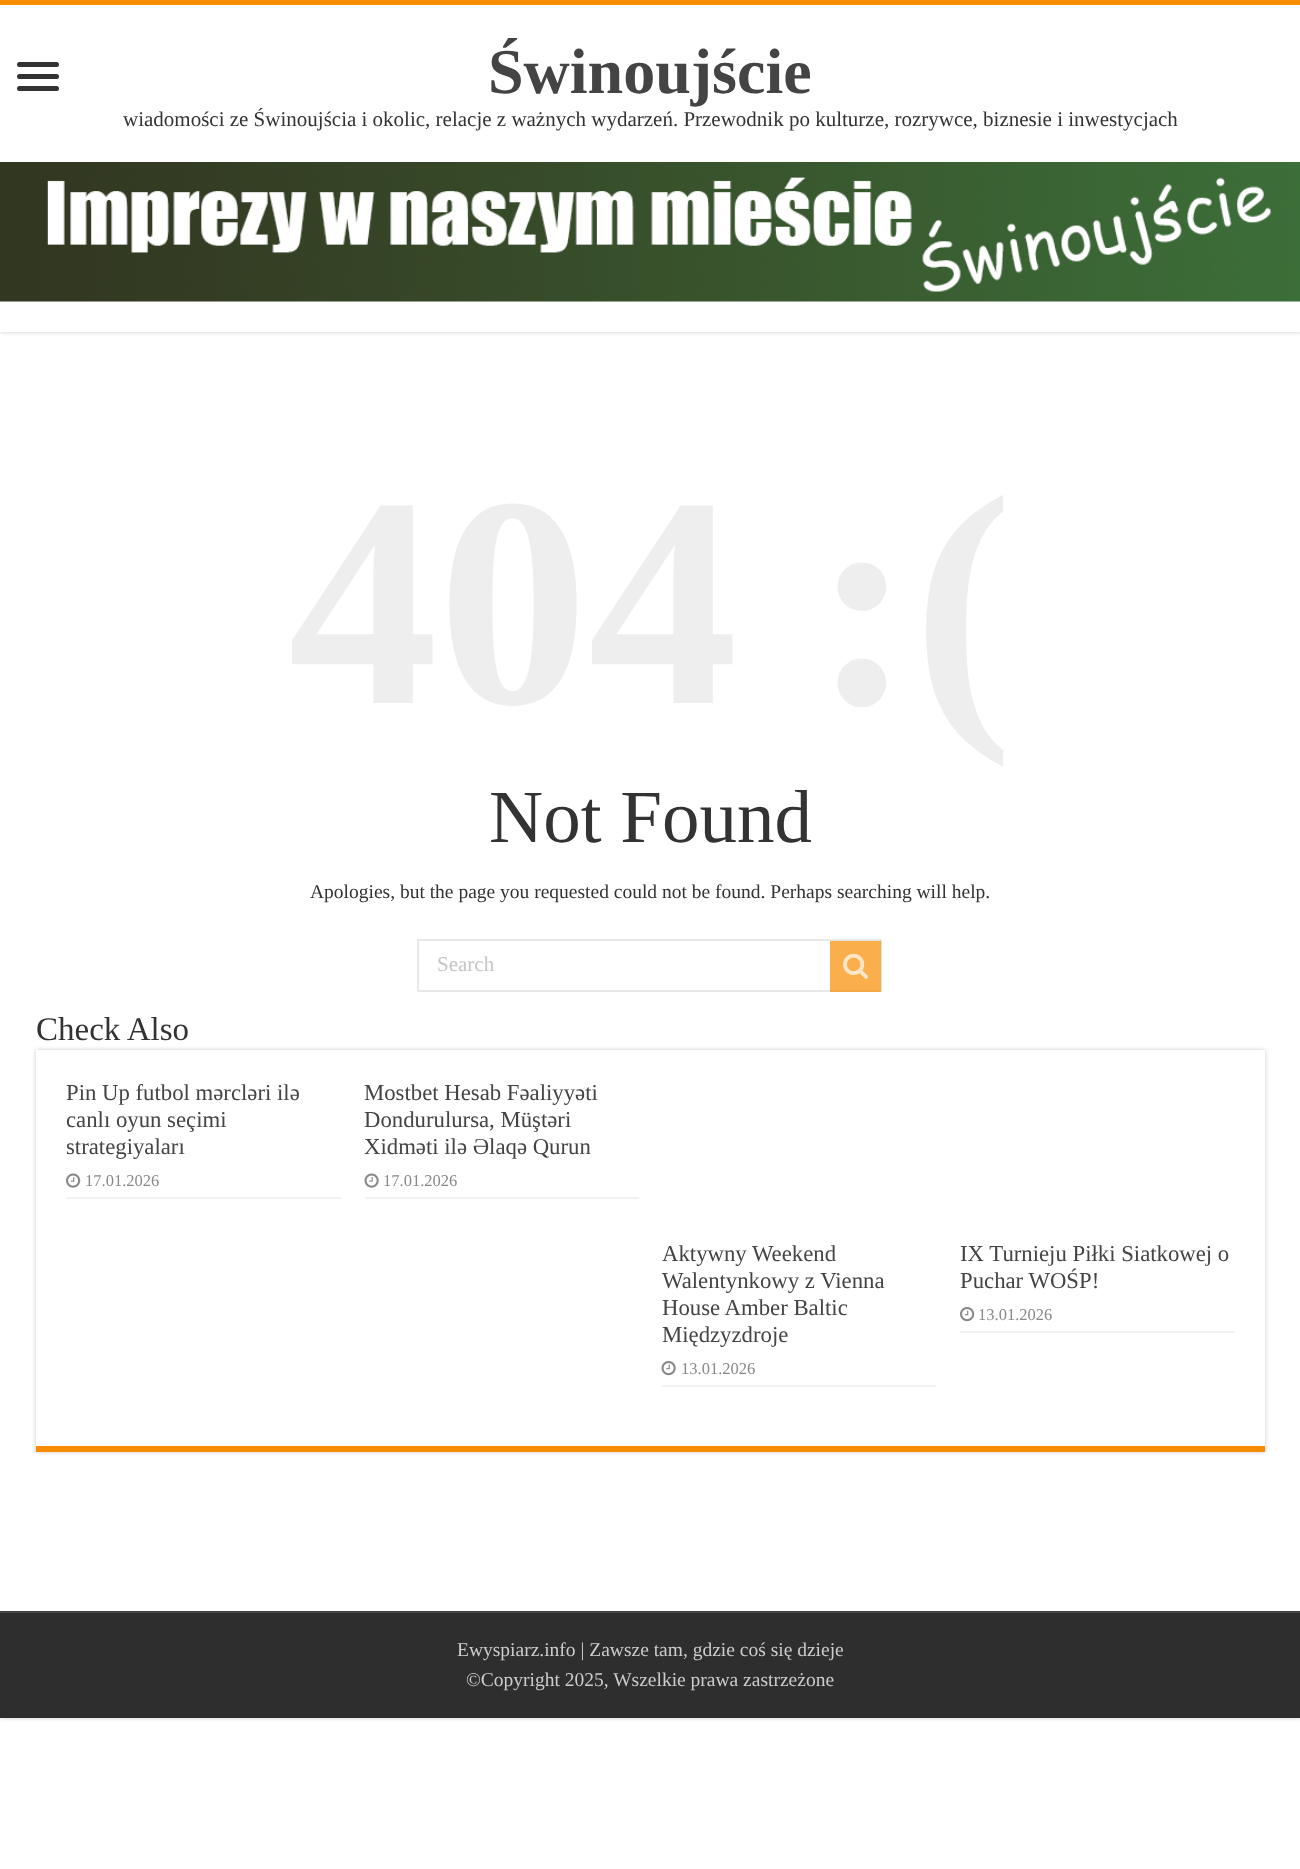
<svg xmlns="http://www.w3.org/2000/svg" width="1300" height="1869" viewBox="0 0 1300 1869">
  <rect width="100%" height="100%" fill="#fff"/>
  <path d="M0 0h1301v1718H0z" fill="#cacaca" filter="blur(2px)"/>
  <path d="M0 332h1300v1279H0z" fill="#fff"/>
  <path d="M0 0h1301v332H0z" fill="#cacaca" filter="blur(2px)"/>
  <path d="M0 5h1300v327H0z" fill="#fff"/>
  <path d="M0 0h1300v5H0z" fill="#f88c00"/>
  <rect x="17" y="62" width="42" height="5" rx="2.5" fill="#333"/>
  <rect x="17" y="74" width="42" height="5" rx="2.5" fill="#333"/>
  <rect x="17" y="86" width="42" height="5" rx="2.5" fill="#333"/>
  <image x="0" y="162" width="1300" height="140" href="img/1.png"/>
  <path d="M418 940h463v51H418z" fill="none" stroke="#e8e8e8" stroke-width="2"/>
  <path d="M830 941h51v51H830z" fill="#f88c00b3"/>
  <image x="843" y="953" width="25" height="26" href="img/2.png"/>
  <path d="M36 1050h1229v402H36z" fill="#cacaca" filter="blur(2px)"/>
  <path d="M36 1050h1229v396H36z" fill="#fff"/>
  <path d="M36 1446h1229v6H36z" fill="#f88c00"/>
  <path d="M66 1197h275v2H66z" fill="#f2f2f2"/>
  <image x="66" y="1173" width="15" height="15" href="img/3.png"/>
  <path d="M365 1197h274v2H365z" fill="#f2f2f2"/>
  <image x="364" y="1173" width="15" height="15" href="img/4.png"/>
  <path d="M662 1385h274v2H662z" fill="#f2f2f2"/>
  <image x="661" y="1361" width="15" height="15" href="img/5.png"/>
  <path d="M960 1331h275v2H960z" fill="#f2f2f2"/>
  <image x="960" y="1307" width="15" height="15" href="img/6.png"/>
  <path d="M0 1613h1300v105H0z" fill="#2e2e2e"/>
  <path d="M0 1611h1300v2H0z" fill="#444"/>
  <text x="488" y="93" font-family="Liberation Serif" font-size="64" font-weight="bold" fill="#444">Świnoujście</text>
  <text x="123" y="126" font-family="Liberation Serif" font-size="21" fill="#333">wiadomości ze Świnoujścia i okolic, relacje z ważnych wydarzeń. Przewodnik po kulturze, rozrywce, biznesie i inwestycjach</text>
  <text x="288" y="703" font-family="Liberation Serif" font-size="300" font-weight="bold" fill="#eee">404 :(</text>
  <text x="489" y="842" font-family="Liberation Serif" font-size="75" fill="#333">Not Found</text>
  <text x="310" y="898" font-family="Liberation Serif" font-size="19.5" fill="#333">Apologies, but the page you requested could not be found. Perhaps searching will help.</text>
  <text x="437" y="971" font-family="Liberation Serif" font-size="21" fill="#c5c5c5">Search</text>
  <text x="36" y="1040" font-family="Liberation Serif" font-size="33" fill="#333">Check Also</text>
  <g font-family="Liberation Serif" font-size="22.75" fill="#444">
    <text x="66" y="1100">Pin Up futbol mərcləri ilə</text>
    <text x="66" y="1127">canlı oyun seçimi</text>
    <text x="66" y="1154">strategiyaları</text>
  </g>
  <text x="85" y="1186" font-family="Liberation Serif" font-size="16.5" fill="#888">17.01.2026</text>
  <g font-family="Liberation Serif" font-size="22.75" fill="#444">
    <text x="364" y="1100">Mostbet Hesab Fəaliyyəti</text>
    <text x="364" y="1127">Dondurulursa, Müştəri</text>
    <text x="364" y="1154">Xidməti ilə Əlaqə Qurun</text>
  </g>
  <text x="383" y="1186" font-family="Liberation Serif" font-size="16.5" fill="#888">17.01.2026</text>
  <g font-family="Liberation Serif" font-size="22.75" fill="#444">
    <text x="662" y="1261">Aktywny Weekend</text>
    <text x="662" y="1288">Walentynkowy z Vienna</text>
    <text x="662" y="1315">House Amber Baltic</text>
    <text x="662" y="1342">Międzyzdroje</text>
  </g>
  <text x="681" y="1374" font-family="Liberation Serif" font-size="16.5" fill="#888">13.01.2026</text>
  <g font-family="Liberation Serif" font-size="22.75" fill="#444">
    <text x="960" y="1261">IX Turnieju Piłki Siatkowej o</text>
    <text x="960" y="1288">Puchar WOŚP!</text>
  </g>
  <text x="978" y="1320" font-family="Liberation Serif" font-size="16.5" fill="#888">13.01.2026</text>
  <g font-family="Liberation Serif" font-size="19.5" fill="#ccc">
    <text x="457" y="1656">Ewyspiarz.info | Zawsze tam, gdzie coś się dzieje</text>
    <text x="466" y="1686">©Copyright 2025, Wszelkie prawa zastrzeżone</text>
  </g>
</svg>
